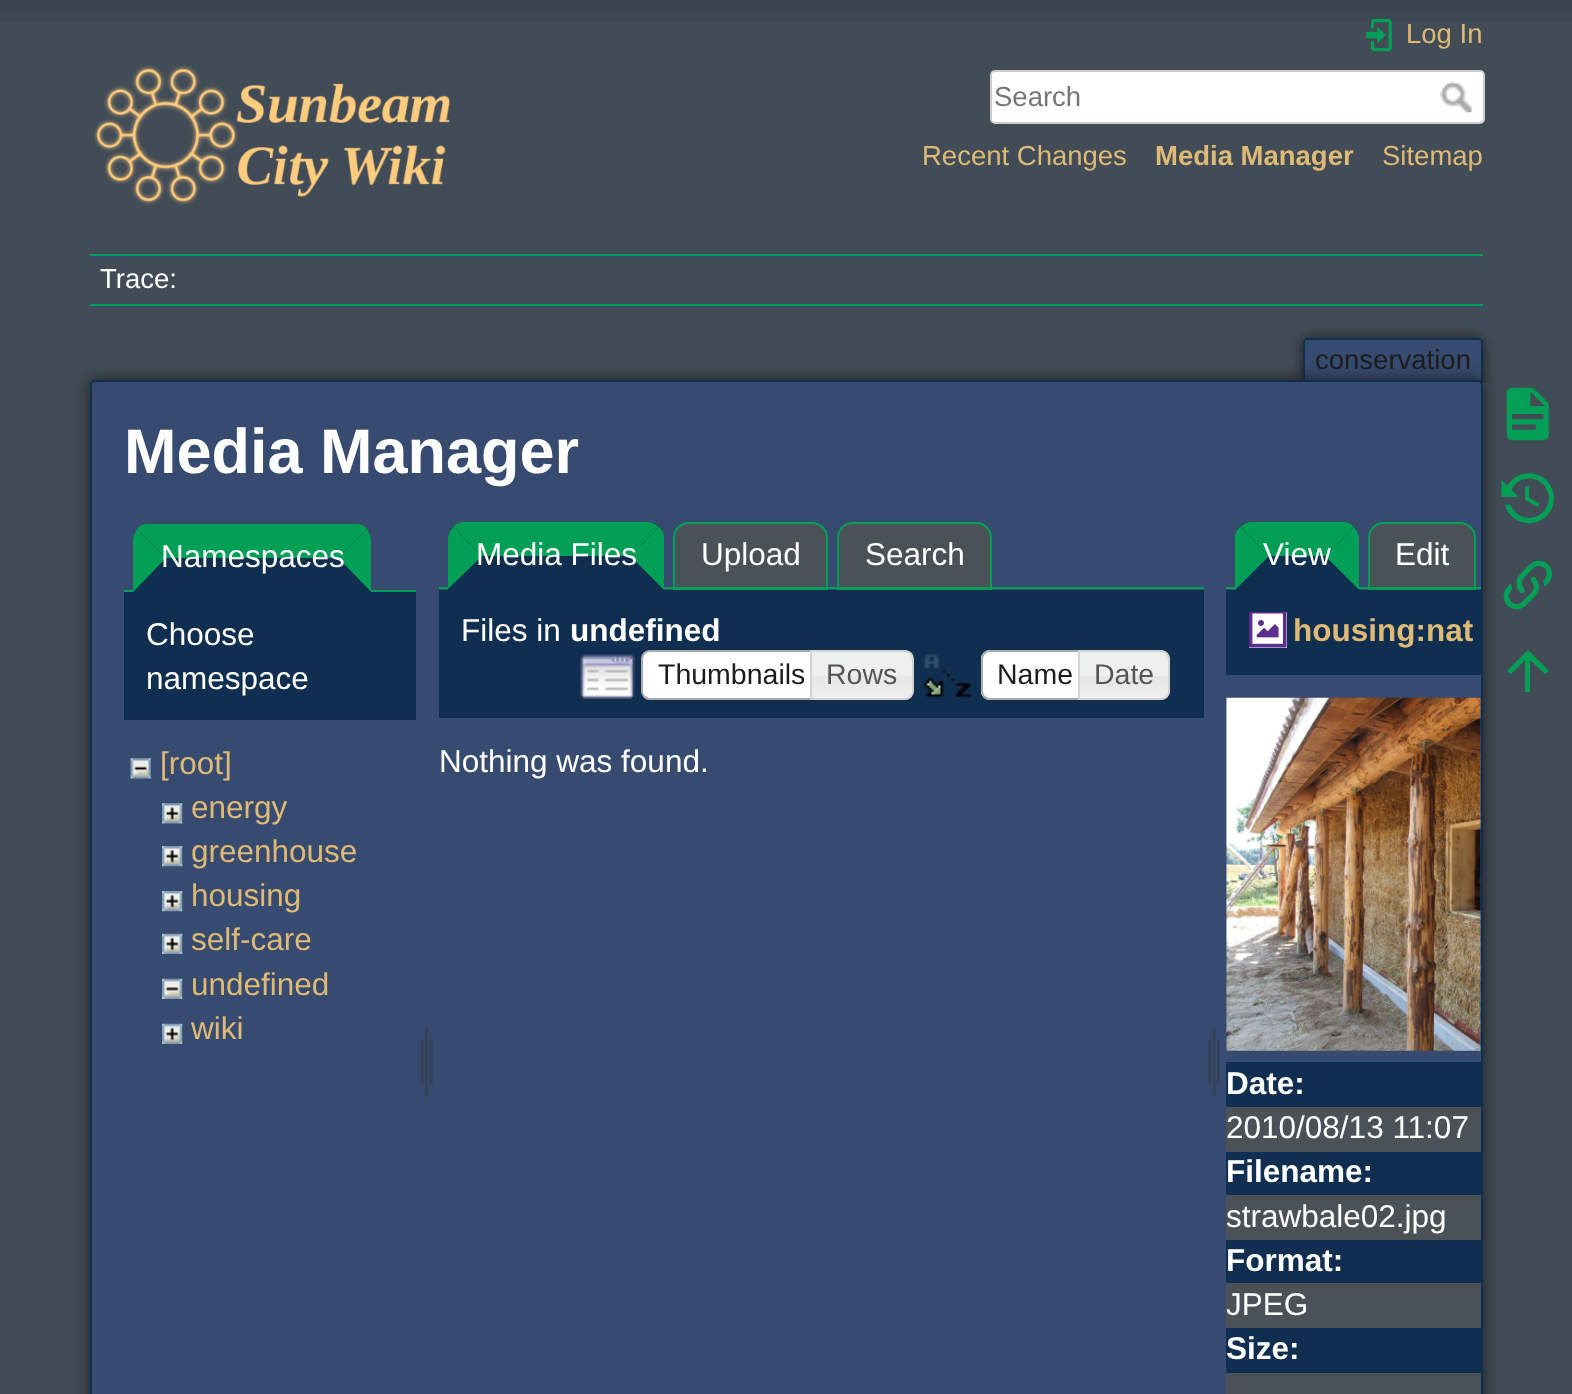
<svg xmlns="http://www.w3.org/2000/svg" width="1572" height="1394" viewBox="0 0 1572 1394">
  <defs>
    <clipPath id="clip1"><path d="M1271 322h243v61H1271z"/></clipPath>
  </defs>
  <rect width="100%" height="100%" fill="#414c57"/>
  <image x="0" y="0" width="1572" height="22" href="img/1.png"/>
  <image x="94" y="65" width="356" height="141" href="img/2.png"/>
  <image x="1366" y="18" width="26" height="34" href="img/3.png"/>
  <rect x="991" y="71" width="493" height="52" rx="4" fill="#fff" stroke="#ccc" stroke-width="2"/>
  <image x="1440" y="81" width="32" height="32" href="img/4.png"/>
  <path d="M90 254h1393v2H90z" fill="#039f56"/>
  <path d="M90 306h1393v2H90z" fill="#374b70"/>
  <path d="M90 257h1393v2H90z" fill="#374b70"/>
  <path d="M90 304h1393v2H90z" fill="#039f56"/>
  <g clip-path="url(#clip1)">
    <rect x="1303" y="338" width="180" height="45" rx="5" fill="#1c1c1c" filter="blur(7px)"/>
  </g>
  <path d="M1307 340H1479C1480 340 1481 341 1481 342V383H1305V342C1305 341 1306 340 1307 340Z" fill="#374b70"/>
  <path d="M1305 338h176v2H1305z" fill="#102f50"/>
  <path d="M1481 340h2v43H1481z" fill="#102f50"/>
  <path d="M1303 340h2v43H1303z" fill="#102f50"/>
  <rect x="90" y="380" width="1393" height="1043" rx="5" fill="#1c1c1c" filter="blur(8px)"/>
  <rect x="91" y="381" width="1391" height="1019" rx="4" fill="#374b70" stroke="#102f50" stroke-width="2"/>
  <path d="M124 590h292v2H124z" fill="#039f56"/>
  <path d="M149 524H355C364 524 371 531 371 540V592H133V540C133 531 140 524 149 524Z" fill="#102f50"/>
  <path d="M359 524H145C142 525 139 526 137 529L166 558H338L367 529C365 526 362 525 359 524Z" fill="#039f56"/>
  <path d="M367 529L338 558L371 592V540C371 536 369 532 367 529Z" fill="#039f56"/>
  <path d="M371 592L338 558H166L133 592Z" fill="#102f50"/>
  <path d="M133 592L166 558L137 529C135 532 133 536 133 540Z" fill="#039f56"/>
  <path d="M124 592h292v128H124z" fill="#102f50"/>
  <image x="130" y="758" width="21" height="21" href="img/5.png"/>
  <image x="162" y="803" width="21" height="21" href="img/6.png"/>
  <image x="162" y="846" width="21" height="21" href="img/7.png"/>
  <image x="162" y="891" width="21" height="21" href="img/7.png"/>
  <image x="162" y="933" width="21" height="21" href="img/8.png"/>
  <image x="162" y="978" width="21" height="21" href="img/9.png"/>
  <image x="162" y="1023" width="21" height="21" href="img/8.png"/>
  <image x="420" y="1027" width="13" height="70" href="img/10.png"/>
  <path d="M689 523H812C820.5 523 827 529.5 827 538V589H674V538C674 529.5 680.5 523 689 523Z" fill="#4a5258" stroke="#039f56" stroke-width="2"/>
  <path d="M853 523H976C984.5 523 991 529.5 991 538V589H838V538C838 529.5 844.5 523 853 523Z" fill="#4a5258" stroke="#039f56" stroke-width="2"/>
  <path d="M439 587h765v2H439z" fill="#039f56"/>
  <path d="M464 522H648C657 522 664 529 664 538V590H448V538C448 529 455 522 464 522Z" fill="#102f50"/>
  <path d="M464 522H648C652 522 656 524 659 527L630 556H482L453 527C455 524 459 522 464 522Z" fill="#039f56"/>
  <path d="M659 527L630 556L664 590V535C663 532 662 529 659 527Z" fill="#039f56"/>
  <path d="M664 590L630 556H482L448 590Z" fill="#102f50"/>
  <path d="M453 527C450 530 448 534 448 538V589L482 556Z" fill="#039f56"/>
  <path d="M439 590h765v128H439z" fill="#102f50"/>
  <image x="580" y="654" width="55" height="46" href="img/11.png"/>
  <image x="641" y="650" width="169" height="50" href="img/12.png"/>
  <path d="M650 651H820V699H650C645.5 699 642 695.5 642 691V659C642 654.5 645.5 651 650 651Z" fill="none" stroke="#aaa" stroke-width="2"/>
  <image x="812" y="650" width="101" height="50" href="img/13.png"/>
  <path d="M811 651H905C909.5 651 913 654.5 913 659V691C913 695.5 909.5 699 905 699H811Z" fill="none" stroke="#d3d3d3" stroke-width="2"/>
  <image x="922" y="654" width="49" height="44" href="img/14.png"/>
  <path d="M990 650H1089V700H990C985 700 981 696 981 691V659C981 654 985 650 990 650Z" fill="#fff"/>
  <image x="981" y="650" width="9" height="50" href="img/15.png"/>
  <path d="M990 651H1088V699H990C985.5 699 982 695.5 982 691V659C982 654.5 985.5 651 990 651Z" fill="none" stroke="#aaa" stroke-width="2"/>
  <image x="1077" y="650" width="93" height="50" href="img/16.png"/>
  <path d="M1079 651H1161C1165.5 651 1169 654.5 1169 659V691C1169 695.5 1165.5 699 1161 699H1079Z" fill="none" stroke="#d3d3d3" stroke-width="2"/>
  <image x="1208" y="1027" width="12" height="70" href="img/17.png"/>
  <path d="M1384 523H1460C1468.5 523 1475 529.5 1475 538V589H1369V538C1369 529.5 1375.5 523 1384 523Z" fill="#4a5258" stroke="#039f56" stroke-width="2"/>
  <path d="M1226 587h255v2H1226z" fill="#039f56"/>
  <path d="M1251 522H1343C1352 522 1359 529 1359 538V590H1235V538C1235 529 1242 522 1251 522Z" fill="#102f50"/>
  <path d="M1251 522H1343C1348 522 1352 524 1354 527L1325 556H1269L1240 527C1243 524 1247 522 1251 522Z" fill="#039f56"/>
  <path d="M1354 527L1325 556L1359 590V538C1359 534 1357 530 1354 527Z" fill="#039f56"/>
  <path d="M1359 590L1325 556H1269L1235 590Z" fill="#102f50"/>
  <path d="M1235 590L1269 556L1240 527C1237 529 1236 532 1235 535Z" fill="#039f56"/>
  <path d="M1226 590h255v85H1226z" fill="#102f50"/>
  <image x="1249" y="612" width="38" height="36" href="img/18.png"/>
  <image x="1226" y="697" width="255" height="354" href="img/19.png"/>
  <path d="M1226 1062h255v45H1226z" fill="#102f50"/>
  <path d="M1226 1107h255v45H1226z" fill="#4a5258"/>
  <path d="M1226 1152h255v43H1226z" fill="#102f50"/>
  <path d="M1226 1195h255v45H1226z" fill="#4a5258"/>
  <path d="M1226 1240h255v43H1226z" fill="#102f50"/>
  <path d="M1226 1283h255v45H1226z" fill="#4a5258"/>
  <path d="M1226 1328h255v45H1226z" fill="#102f50"/>
  <path d="M1226 1373h255v21H1226z" fill="#4a5258"/>
  <image x="1506" y="387" width="43" height="54" href="img/20.png"/>
  <image x="1501" y="473" width="53" height="51" href="img/21.png"/>
  <image x="1503" y="560" width="49" height="50" href="img/22.png"/>
  <path d="M1530 692H1525V660L1511 674L1507 671L1528 650L1549 671L1545 674L1530 660Z" fill="#039f56"/>
  <text x="1406" y="43" font-family="Liberation Sans" font-size="27.5" fill="#dfba76">Log In</text>
  <text x="994" y="106" font-family="Liberation Sans" font-size="27.5" fill="#757575">Search</text>
  <text x="922" y="165" font-family="Liberation Sans" font-size="27.5" fill="#dfba76">Recent Changes</text>
  <text x="1155" y="165" font-family="Liberation Sans" font-size="27.5" font-weight="bold" fill="#dfba76">Media Manager</text>
  <text x="1382" y="165" font-family="Liberation Sans" font-size="27.5" fill="#dfba76">Sitemap</text>
  <text x="100" y="288" font-family="Liberation Sans" font-size="27.5" fill="#fff">Trace:</text>
  <text x="1315" y="369" font-family="Liberation Sans" font-size="27.5" fill="#1c1c1c">conservation</text>
  <text x="124" y="473" font-family="Liberation Sans" font-size="63" font-weight="bold" fill="#fff">Media Manager</text>
  <g font-family="Liberation Sans" font-size="31.5" fill="#fff">
    <text x="161" y="567">Namespaces</text>
    <text x="146" y="645">Choose</text>
    <text x="146" y="689">namespace</text>
  </g>
  <g font-family="Liberation Sans" font-size="31.5" fill="#dfba76">
    <text x="160" y="774">[root]</text>
    <text x="191" y="818">energy</text>
    <text x="191" y="862">greenhouse</text>
    <text x="191" y="906">housing</text>
    <text x="191" y="950">self-care</text>
    <text x="191" y="995">undefined</text>
    <text x="191" y="1039">wiki</text>
  </g>
  <g font-family="Liberation Sans" font-size="31.5" fill="#fff">
    <text x="476" y="565">Media Files</text>
    <text x="701" y="565">Upload</text>
    <text x="865" y="565">Search</text>
    <text x="461" y="641">Files in</text>
  </g>
  <text x="570" y="641" font-family="Liberation Sans" font-size="31.5" font-weight="bold" fill="#fff">undefined</text>
  <text x="658" y="684" font-family="Liberation Sans" font-size="28.5" fill="#1c1c1c">Thumbnails</text>
  <text x="826" y="684" font-family="Liberation Sans" font-size="28.5" fill="#555">Rows</text>
  <text x="997" y="684" font-family="Liberation Sans" font-size="28.5" fill="#1c1c1c">Name</text>
  <text x="1094" y="684" font-family="Liberation Sans" font-size="28.5" fill="#555">Date</text>
  <g font-family="Liberation Sans" font-size="31.5" fill="#fff">
    <text x="439" y="772">Nothing was found.</text>
    <text x="1263" y="565">View</text>
    <text x="1395" y="565">Edit</text>
  </g>
  <text x="1293" y="641" font-family="Liberation Sans" font-size="31.5" font-weight="bold" fill="#dfba76">housing:nat</text>
  <text x="1226" y="1094" font-family="Liberation Sans" font-size="31.5" font-weight="bold" fill="#fff">Date:</text>
  <text x="1226" y="1138" font-family="Liberation Sans" font-size="31.5" fill="#fff">2010/08/13 11:07</text>
  <text x="1226" y="1182" font-family="Liberation Sans" font-size="31.5" font-weight="bold" fill="#fff">Filename:</text>
  <text x="1226" y="1227" font-family="Liberation Sans" font-size="31.5" fill="#fff">strawbale02.jpg</text>
  <text x="1226" y="1271" font-family="Liberation Sans" font-size="31.5" font-weight="bold" fill="#fff">Format:</text>
  <text x="1226" y="1315" font-family="Liberation Sans" font-size="31.5" fill="#fff">JPEG</text>
  <text x="1226" y="1359" font-family="Liberation Sans" font-size="31.5" font-weight="bold" fill="#fff">Size:</text>
</svg>
